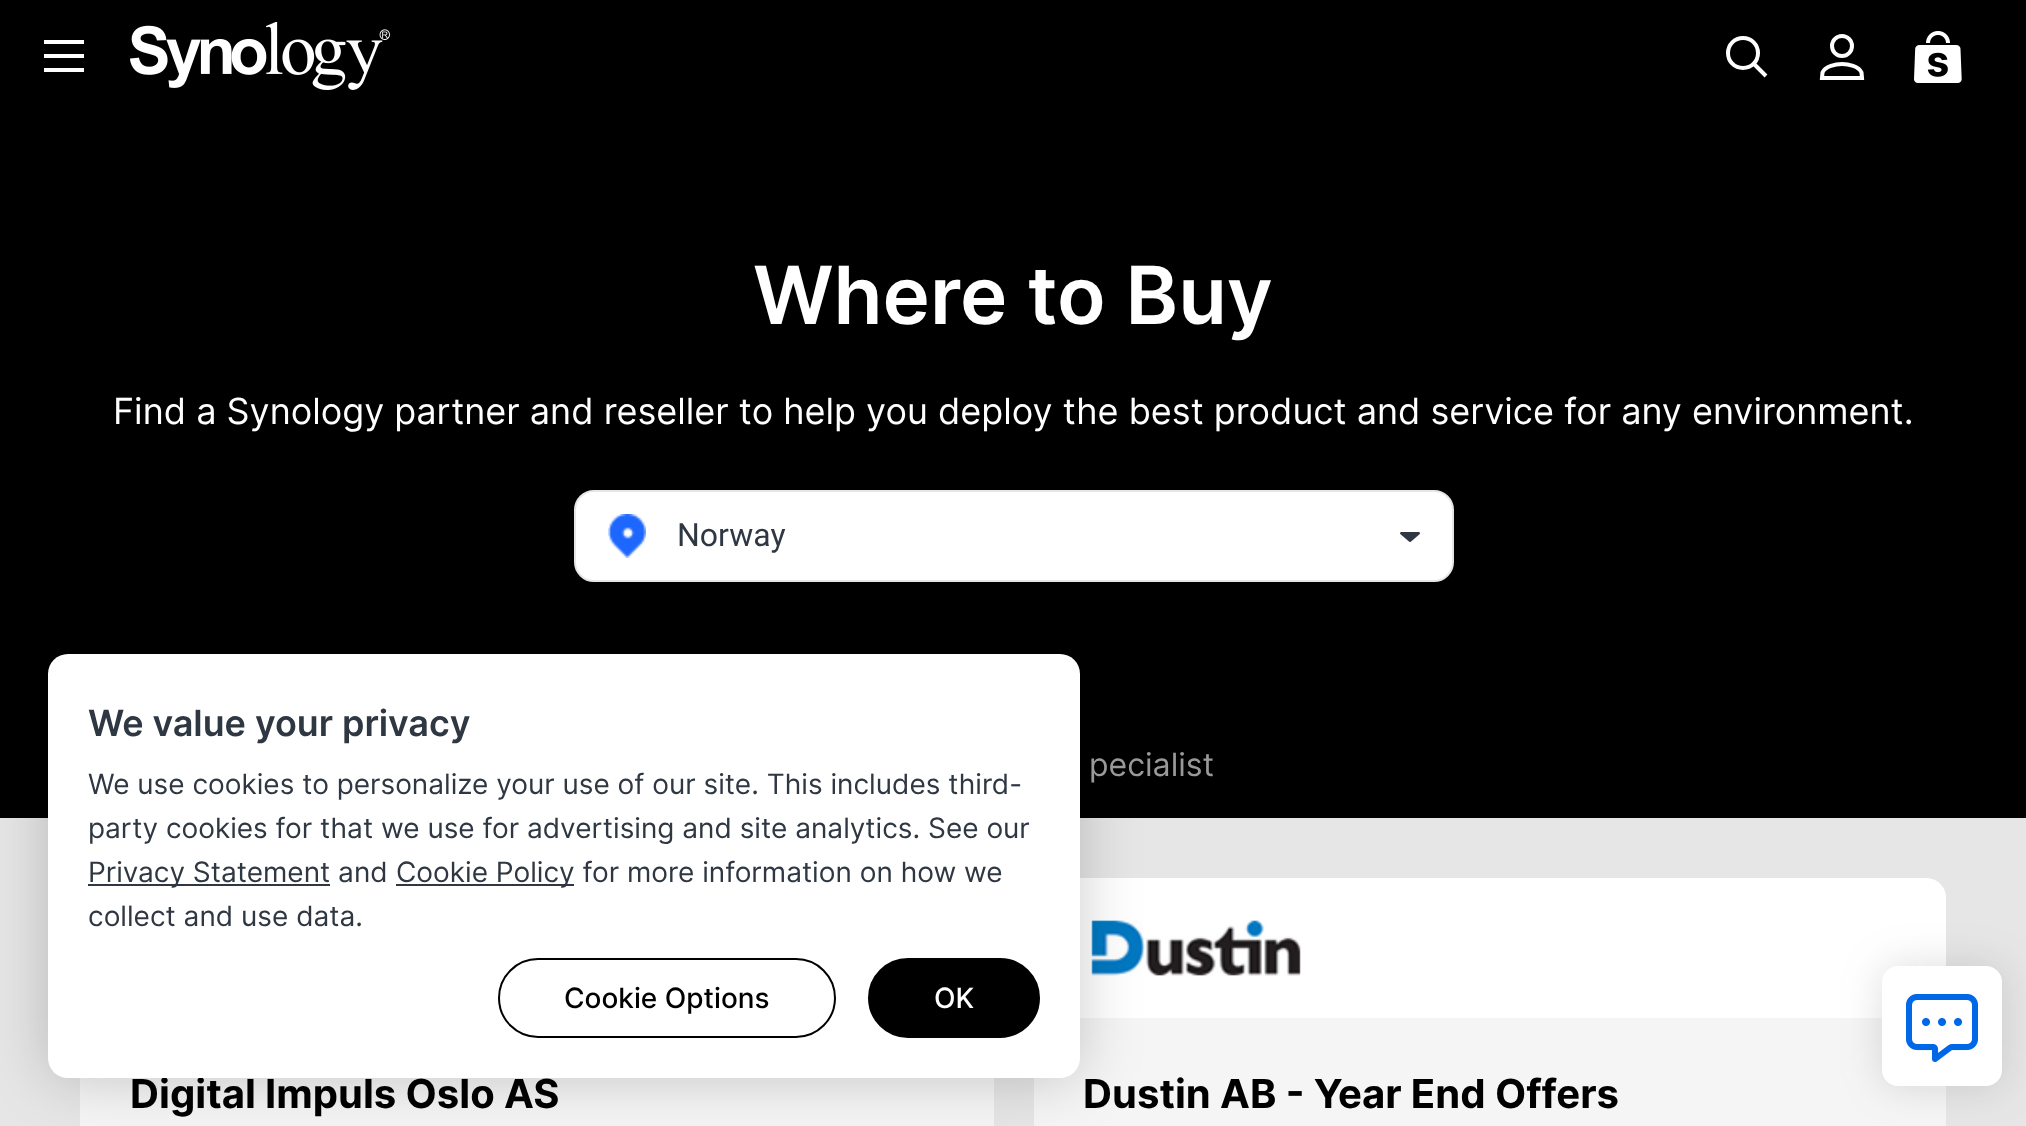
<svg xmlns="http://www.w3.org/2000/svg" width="2026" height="1126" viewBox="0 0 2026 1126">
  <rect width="100%" height="100%" fill="#000"/>
  <path d="M44 40h40v4H44z" fill="#fff"/>
  <path d="M44 54h40v4H44z" fill="#fff"/>
  <path d="M44 68h40v4H44z" fill="#fff"/>
  <image x="130" y="22" width="260" height="68" href="img/1.png"/>
  <path d="M1743 68C1751.5 68 1758 61.5 1758 53C1758 44.5 1751.5 38 1743 38C1734.5 38 1728 44.5 1728 53C1728 61.5 1734.5 68 1743 68ZM1754 64L1766 76" fill="none" stroke="#fff" stroke-width="4"/>
  <path d="M1842 64C1848 64 1859 66 1861.5 72.5L1862 78H1822L1822.5 72.5C1825 66 1836 64 1842 64Z" fill="none" stroke="#fff" stroke-width="4"/>
  <circle cx="1842" cy="46" r="10" fill="none" stroke="#fff" stroke-width="4"/>
  <image x="1914" y="31" width="48" height="52" href="img/2.png"/>
  <rect x="575" y="491" width="878" height="90" rx="19" fill="#fff" stroke="#e6e6e6" stroke-width="2"/>
  <image x="608" y="514" width="38" height="44" href="img/3.png"/>
  <image x="1400" y="532" width="20" height="10" href="img/4.png"/>
  <path d="M0 818h2026v308H0z" fill="#e6e6e6"/>
  <path d="M80 1078h914v48H80z" fill="#f5f5f5"/>
  <rect x="1034" y="878" width="912" height="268" rx="20" fill="#f5f5f5"/>
  <path d="M1054 878H1926C1937 878 1946 887 1946 898V1018H1034V898C1034 887 1043 878 1054 878Z" fill="#fff"/>
  <image x="1091" y="920" width="210" height="56" href="img/5.png"/>
  <rect x="1882" y="966" width="120" height="120" rx="16" fill="#54545433" filter="blur(20px)"/>
  <rect x="1882" y="966" width="120" height="120" rx="16" fill="#fff"/>
  <image x="1906" y="994" width="72" height="68" href="img/6.png"/>
  <rect x="48" y="654" width="1032" height="424" rx="20" fill="#00000033" filter="blur(30px)"/>
  <text x="753" y="324" font-family="Inter" font-size="80" font-weight="600" fill="#fff">Where to Buy</text>
  <text x="113" y="424" font-family="Inter" font-size="36" fill="#fff">Find a Synology partner and reseller to help you deploy the best product and service for any environment.</text>
  <text x="677" y="546" font-family="Roboto" font-size="32" fill="#2e3742">Norway</text>
  <text x="1089" y="776" font-family="Inter" font-size="32" fill="#999">pecialist</text>
  <g font-family="Inter" font-size="40" font-weight="bold" fill="#000">
    <text x="130" y="1108">Digital Impuls Oslo AS</text>
    <text x="1083" y="1108">Dustin AB - Year End Offers</text>
  </g>
  <rect x="48" y="654" width="1032" height="424" rx="20" fill="#fff"/>
  <text x="88" y="736" font-family="Inter" font-size="36" font-weight="600" fill="#2e3742">We value your privacy</text>
  <g font-family="Inter" font-size="28" fill="#2e3742">
    <text x="88" y="794">We use cookies to personalize your use of our site. This includes third-</text>
    <text x="88" y="838">party cookies for that we use for advertising and site analytics. See our</text>
  </g>
  <path d="M88 884h242v2H88z" fill="#2e3742"/>
  <text x="88" y="882" font-family="Inter" font-size="28" fill="#2e3742">Privacy Statement and</text>
  <path d="M396 884h178v2H396z" fill="#2e3742"/>
  <g font-family="Inter" font-size="28" fill="#2e3742">
    <text x="396" y="882">Cookie Policy for more information on how we</text>
    <text x="88" y="926">collect and use data.</text>
  </g>
  <rect x="499" y="959" width="336" height="78" rx="39" fill="none" stroke="#000" stroke-width="2"/>
  <text x="564" y="1008" font-family="Inter" font-size="28" font-weight="500" fill="#000">Cookie Options</text>
  <rect x="869" y="959" width="170" height="78" rx="39" fill="#000" stroke="#000" stroke-width="2"/>
  <text x="934" y="1008" font-family="Inter" font-size="28" font-weight="500" fill="#fff">OK</text>
</svg>
